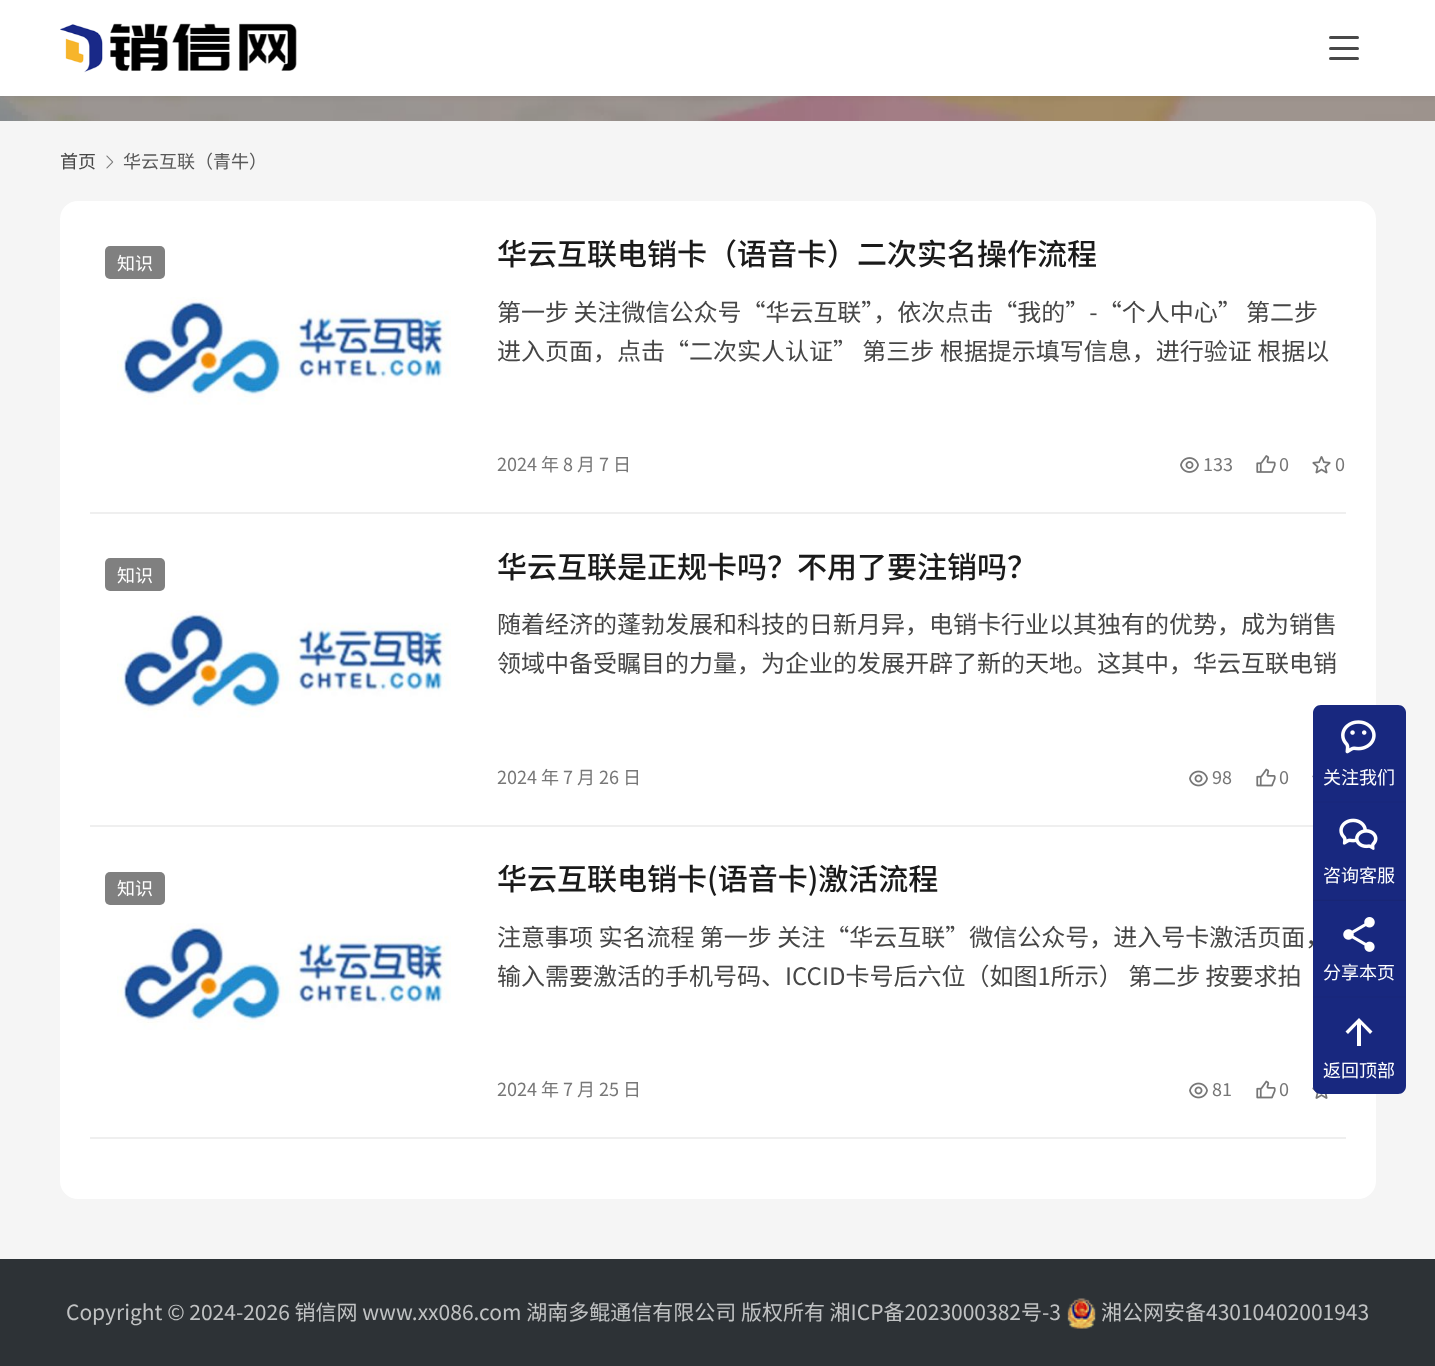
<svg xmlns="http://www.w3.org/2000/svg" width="1435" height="1366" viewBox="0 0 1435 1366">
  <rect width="100%" height="100%" fill="#f5f5f5"/>
  <image x="0" y="96" width="1435" height="25" href="img/2.png"/>
  <path d="M-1 -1h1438v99H-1z" fill="#1a1a1a0f" filter="blur(2px)"/>
  <path d="M0 0h1435v96H0z" fill="#fff"/>
  <image x="60" y="23" width="237" height="50" href="img/1.png"/>
  <rect x="1329" y="36" width="30" height="3" rx="1.5" fill="#484848"/>
  <rect x="1329" y="47" width="30" height="3" rx="1.5" fill="#484848"/>
  <rect x="1329" y="57" width="30" height="3" rx="1.5" fill="#484848"/>
  <image x="106" y="155" width="8" height="14" href="img/3.png"/>
  <rect x="60" y="201" width="1316" height="998" rx="18" fill="#fff"/>
  <path d="M90 512h1256v2H90z" fill="#efefef"/>
  <rect x="105" y="246" width="60" height="33" rx="5" fill="#808080"/>
  <image x="117" y="297" width="334" height="108" href="img/4.png"/>
  <image x="1180" y="457" width="19" height="16" href="img/5.png"/>
  <image x="1256" y="455" width="20" height="18" href="img/6.png"/>
  <image x="1312" y="456" width="19" height="18" href="img/7.png"/>
  <path d="M90 825h1223v2H90z" fill="#efefef"/>
  <rect x="105" y="558" width="60" height="33" rx="5" fill="#808080"/>
  <image x="117" y="610" width="334" height="108" href="img/8.png"/>
  <image x="1189" y="770" width="19" height="17" href="img/9.png"/>
  <image x="1256" y="768" width="20" height="19" href="img/10.png"/>
  <image x="1312" y="775" width="1" height="3" href="img/11.png"/>
  <path d="M90 1137h1256v2H90z" fill="#efefef"/>
  <rect x="105" y="872" width="60" height="33" rx="5" fill="#808080"/>
  <image x="117" y="923" width="334" height="107" href="img/12.png"/>
  <image x="1189" y="1082" width="19" height="17" href="img/9.png"/>
  <image x="1256" y="1080" width="20" height="19" href="img/10.png"/>
  <image x="1312" y="1087" width="16" height="12" href="img/13.png"/>
  <path d="M1321 705H1398C1402.5 705 1406 708.5 1406 713V801H1313V713C1313 708.5 1316.5 705 1321 705Z" fill="#182987"/>
  <path d="M1321 705H1398C1402.5 705 1406 708.5 1406 713V801H1313V713C1313 708.5 1316.5 705 1321 705Z" fill="#1a1a1a12"/>
  <image x="1341" y="720" width="35" height="34" href="img/14.png"/>
  <path d="M1313 801h93v2H1313z" fill="#18277c"/>
  <path d="M1313 803h93v96H1313z" fill="#18287f"/>
  <image x="1339" y="818" width="39" height="32" href="img/15.png"/>
  <path d="M1313 901h93v95H1313z" fill="#182987"/>
  <path d="M1313 899h93v2H1313z" fill="#18277c"/>
  <path d="M1313 900h93v96H1313z" fill="#1a1a1a12"/>
  <image x="1343" y="917" width="32" height="35" href="img/16.png"/>
  <path d="M1313 996H1406V1086C1406 1090.5 1402.5 1094 1398 1094H1321C1316.5 1094 1313 1090.5 1313 1086Z" fill="#182987"/>
  <path d="M1313 996h93v2H1313z" fill="#18277c"/>
  <path d="M1313 998H1406V1086C1406 1090.5 1402.5 1094 1398 1094H1321C1316.5 1094 1313 1090.5 1313 1086Z" fill="#1a1a1a12"/>
  <path d="M1361 1024.5V1046H1357V1024.5L1348 1034L1345.5 1031.5L1359 1018L1372.5 1031.5L1370 1034Z" fill="#fff"/>
  <path d="M0 1259h1435v107H0z" fill="#2d3236"/>
  <image x="1067" y="1298" width="29" height="31" href="img/17.png"/>
  <text x="60" y="168" font-family="Noto Sans CJK SC" font-size="18" fill="#464646">首页</text>
  <text x="123" y="168" font-family="Noto Sans CJK SC" font-size="18" fill="#575757">华云互联（青牛）</text>
  <text x="117" y="270" font-family="Noto Sans CJK SC" font-size="18" fill="#fff">知识</text>
  <text x="497" y="265" font-family="Noto Sans CJK SC" font-size="30" font-weight="500" fill="#1a1a1a">华云互联电销卡（语音卡）二次实名操作流程</text>
  <g font-family="Noto Sans CJK SC" font-size="24" fill="#464646">
    <text x="497" y="321" word-spacing="-1">第一步 关注微信公众号“华云互联”，依次点击“我的”-“个人中心” 第二步</text>
    <text x="497" y="360">进入页面，点击“二次实人认证” 第三步 根据提示填写信息，进行验证 根据以</text>
  </g>
  <g font-family="Noto Sans CJK SC" font-size="18" fill="#767676">
    <text x="497" y="471">2024 年 8 月 7 日</text>
    <text x="1203" y="471">133</text>
    <text x="1279" y="471">0</text>
    <text x="1335" y="471">0</text>
  </g>
  <text x="117" y="582" font-family="Noto Sans CJK SC" font-size="18" fill="#fff">知识</text>
  <text x="497" y="578" font-family="Noto Sans CJK SC" font-size="30" font-weight="500" fill="#1a1a1a">华云互联是正规卡吗？不用了要注销吗？</text>
  <g font-family="Noto Sans CJK SC" font-size="24" fill="#464646">
    <text x="497" y="633">随着经济的蓬勃发展和科技的日新月异，电销卡行业以其独有的优势，成为销售</text>
    <text x="497" y="672">领域中备受瞩目的力量，为企业的发展开辟了新的天地。这其中，华云互联电销</text>
  </g>
  <g font-family="Noto Sans CJK SC" font-size="18" fill="#767676">
    <text x="497" y="784">2024 年 7 月 26 日</text>
    <text x="1212" y="784">98</text>
    <text x="1279" y="784">0</text>
  </g>
  <text x="117" y="895" font-family="Noto Sans CJK SC" font-size="18" fill="#fff">知识</text>
  <text x="497" y="890" font-family="Noto Sans CJK SC" font-size="30" font-weight="500" fill="#1a1a1a">华云互联电销卡(语音卡)激活流程</text>
  <g font-family="Noto Sans CJK SC" font-size="24" fill="#464646">
    <text x="497" y="946">注意事项 实名流程 第一步 关注“华云互联”微信公众号，进入号卡激活页面，</text>
    <text x="497" y="985">输入需要激活的手机号码、ICCID卡号后六位（如图1所示） 第二步 按要求拍</text>
  </g>
  <g font-family="Noto Sans CJK SC" font-size="18" fill="#767676">
    <text x="497" y="1096">2024 年 7 月 25 日</text>
    <text x="1212" y="1096">81</text>
    <text x="1279" y="1096">0</text>
  </g>
  <g font-family="Noto Sans CJK SC" font-size="18" fill="#fff">
    <text x="1323" y="784">关注我们</text>
    <text x="1323" y="882">咨询客服</text>
    <text x="1323" y="979">分享本页</text>
    <text x="1323" y="1077">返回顶部</text>
  </g>
  <g font-family="Noto Sans CJK SC" font-size="21" fill="#c0c2c3">
    <text x="66" y="1320">Copyright © 2024-2026 销信网 www.xx086.com 湖南多鲲通信有限公司 版权所有 湘ICP备2023000382号-3</text>
    <text x="1101" y="1320">湘公网安备43010402001943</text>
  </g>
</svg>
